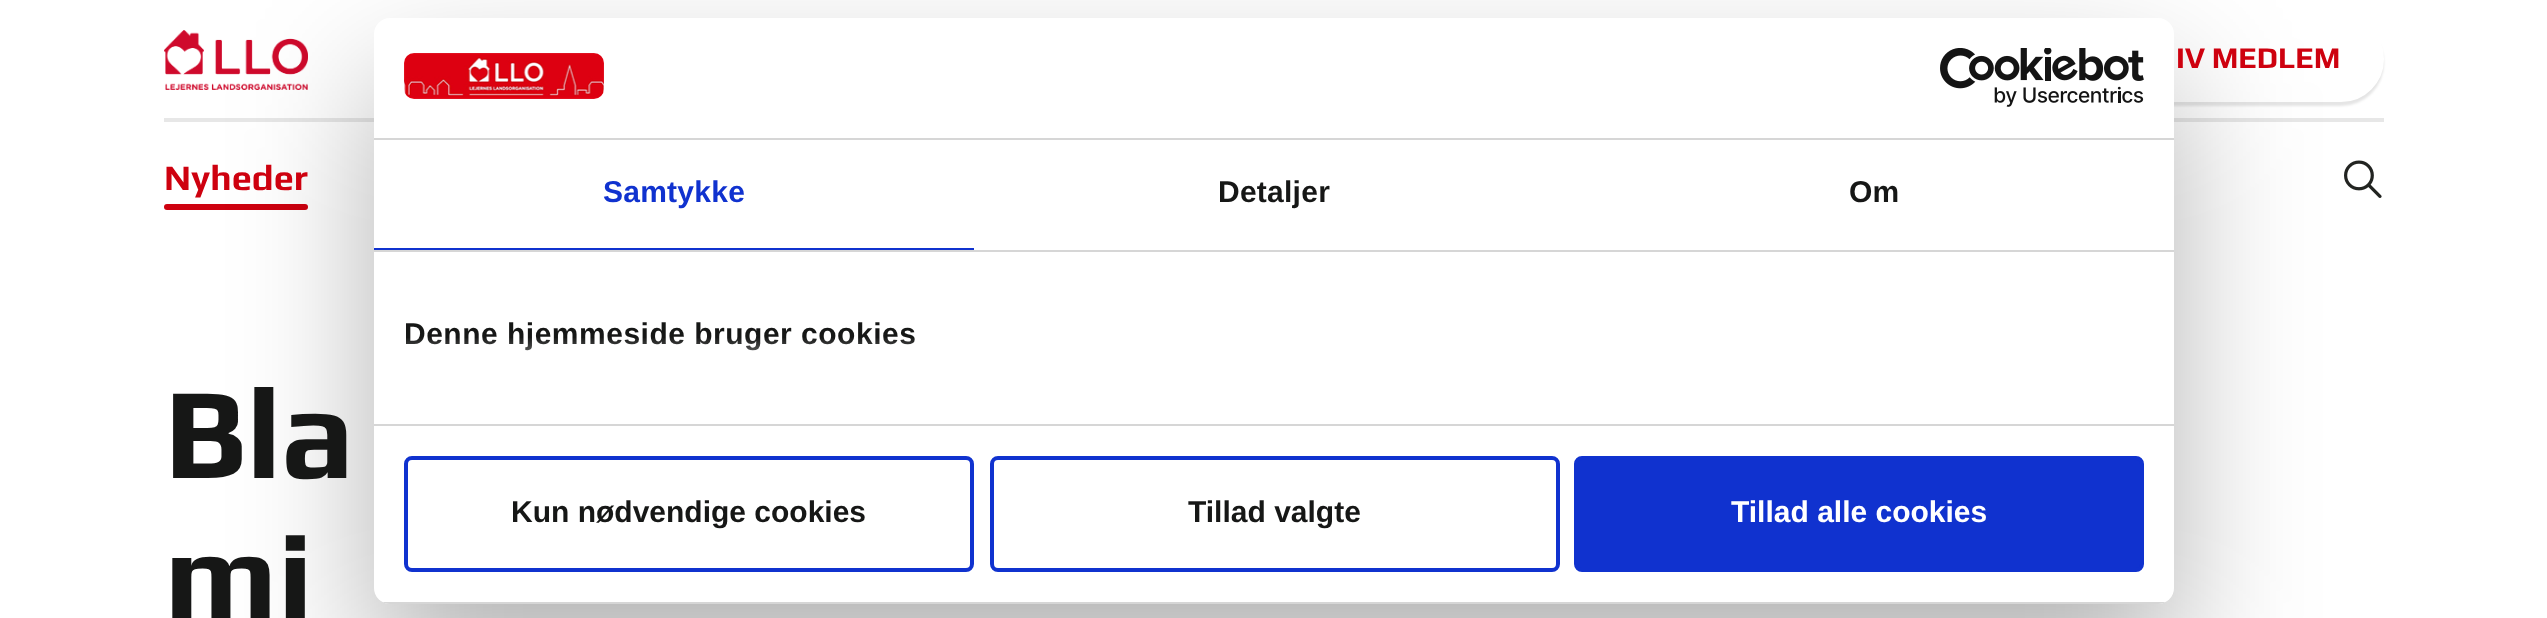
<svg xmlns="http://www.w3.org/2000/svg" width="2547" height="618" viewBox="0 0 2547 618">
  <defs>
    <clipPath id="clip1"><rect x="374" y="18" width="1800" height="586" rx="16"/></clipPath>
    <linearGradient id="g1" gradientUnits="userSpaceOnUse" x1="1261" y1="423" x2="1261" y2="337"><stop offset="0" stop-color="#fff"/><stop offset="0.5" stop-color="#fff" stop-opacity="0.8"/><stop offset="1" stop-color="#fff" stop-opacity="0"/></linearGradient>
  </defs>
  <rect width="100%" height="100%" fill="#fff"/>
  <image x="164" y="30" width="144" height="60" href="img/1.png"/>
  <rect x="2060" y="20" width="324" height="86" rx="43" fill="#0000001a" filter="blur(1px)"/>
  <rect x="2062" y="18" width="320" height="82" rx="41" fill="#fff" stroke="#fff" stroke-width="4"/>
  <rect x="164" y="204" width="144" height="6" rx="3" fill="#ce010f"/>
  <image x="2344" y="160" width="38" height="38" href="img/2.png"/>
  <path d="M164 118h2220v4H164z" fill="#e7e7e7"/>
  <rect x="374" y="82" width="1800" height="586" rx="16" fill="#0000004d" filter="blur(68px)"/>
  <rect x="374" y="18" width="1800" height="586" rx="16" fill="#fff"/>
  <path d="M374 138h1800v2H374z" fill="#d6d6d6"/>
  <image x="404" y="53" width="200" height="46" href="img/3.png"/>
  <image x="1940" y="48" width="204" height="59" href="img/4.png"/>
  <path d="M374 250h1800v2H374z" fill="#d6d6d6"/>
  <path d="M374 248h600v2H374z" fill="#1032cf"/>
  <path d="M374 424h1800v2H374z" fill="#d6d6d6"/>
  <g clip-path="url(#clip1)">
    <path d="M374 602h1800v2H374z" fill="#d6d6d6"/>
  </g>
  <rect x="406" y="458" width="566" height="112" rx="6" fill="none" stroke="#1032cf" stroke-width="4"/>
  <rect x="992" y="458" width="566" height="112" rx="6" fill="none" stroke="#1032cf" stroke-width="4"/>
  <rect x="1576" y="458" width="566" height="112" rx="6" fill="#1032cf" stroke="#1032cf" stroke-width="4"/>
  <text x="2176" y="68" font-family="Play" font-size="30" font-weight="bold" fill="#ce010f">IV MEDLEM</text>
  <text x="164" y="190" font-family="Play" font-size="36" font-weight="bold" fill="#ce010f">Nyheder</text>
  <g font-family="Play" font-size="130" font-weight="bold" letter-spacing="-1" fill="#161716">
    <text x="164" y="478">Bla</text>
    <text x="164" y="621">mi</text>
  </g>
  <text x="603" y="202" font-family="Liberation Sans" font-size="30" font-weight="bold" letter-spacing="0.25" fill="#1032cf">Samtykke</text>
  <g font-family="Liberation Sans" font-size="30" font-weight="bold" letter-spacing="0.25" fill="#161716">
    <text x="1218" y="202">Detaljer</text>
    <text x="1849" y="202">Om</text>
  </g>
  <text x="404" y="344" font-family="Liberation Sans" font-size="30" font-weight="bold" letter-spacing="0.5" fill="#161716">Denne hjemmeside bruger cookies</text>
  <path d="M406 338h509v13H406z" fill="url(#g1)"/>
  <g font-family="Liberation Sans" font-size="30" font-weight="bold" fill="#161716">
    <text x="511" y="522">Kun nødvendige cookies</text>
    <text x="1188" y="522">Tillad valgte</text>
  </g>
  <text x="1731" y="522" font-family="Liberation Sans" font-size="30" font-weight="bold" fill="#fff">Tillad alle cookies</text>
</svg>
